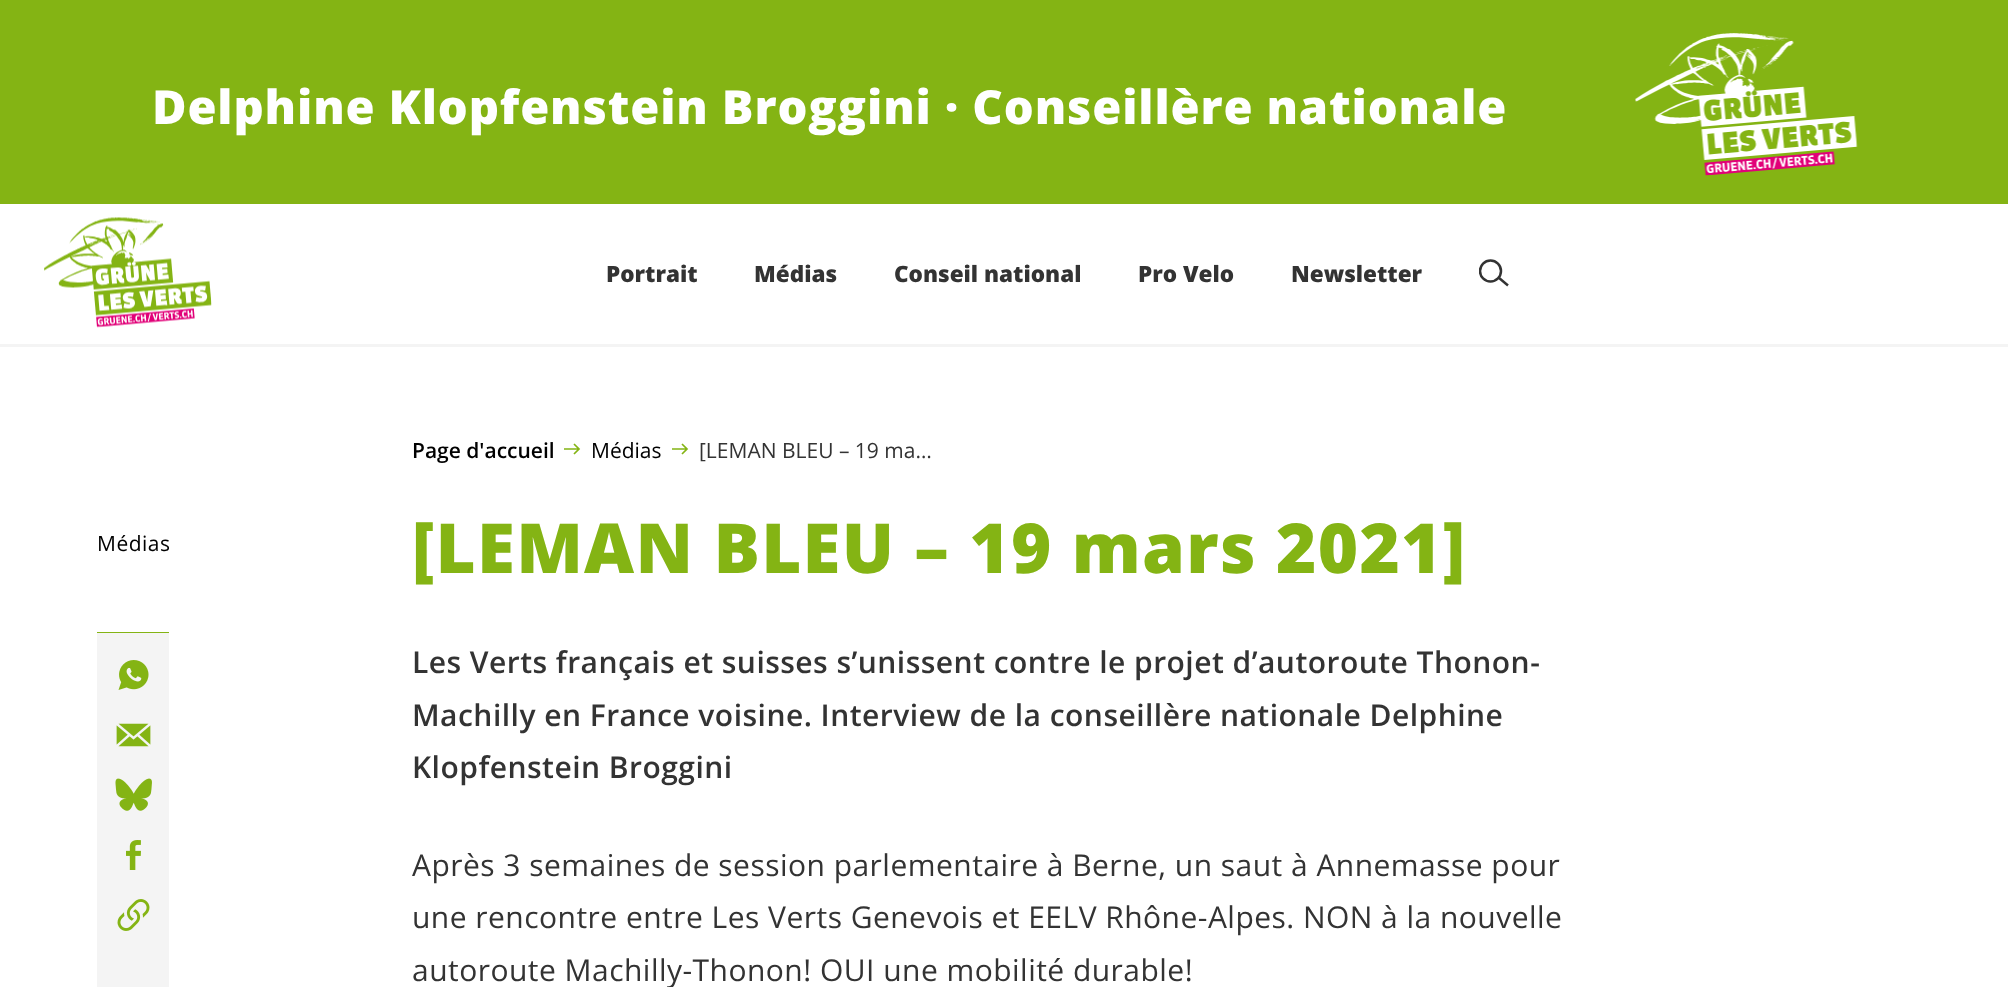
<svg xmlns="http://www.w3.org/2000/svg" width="2008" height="987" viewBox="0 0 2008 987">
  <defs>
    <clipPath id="clip1"><path d="M1479 258h30v30H1479z"/></clipPath>
  </defs>
  <rect width="100%" height="100%" fill="#fff"/>
  <path d="M0 0h2008v204H0z" fill="#84b414"/>
  <image x="1635" y="33" width="223" height="143" href="img/1.png"/>
  <path d="M0 344h2008v3H0z" fill="#f4f4f4"/>
  <image x="44" y="217" width="168" height="111" href="img/2.png"/>
  <g clip-path="url(#clip1)">
    <circle cx="1490.5" cy="271" r="10.5" fill="none" stroke="#333" stroke-width="2.5"/>
  </g>
  <path d="M1498.5 277.5L1508 285.5" fill="none" stroke="#333" stroke-width="2.5"/>
  <path d="M97 633h72v354H97z" fill="#f4f4f4"/>
  <path d="M97 632h72v1H97z" fill="#84b414"/>
  <image x="118" y="660" width="31" height="30" href="img/3.png"/>
  <image x="116" y="723" width="35" height="24" href="img/4.png"/>
  <image x="115" y="778" width="37" height="33" href="img/5.png"/>
  <image x="126" y="840" width="15" height="30" href="img/6.png"/>
  <image x="117" y="899" width="33" height="32" href="img/7.png"/>
  <path d="M574 444L579 449L574 454M579 449H564" fill="none" stroke="#84b414" stroke-width="1.7"/>
  <path d="M682 444L687 449L682 454M687 449H672" fill="none" stroke="#84b414" stroke-width="1.7"/>
  <text x="152" y="124" font-family="Open Sans" font-size="47.1" font-weight="800" letter-spacing="0.85" fill="#fff">Delphine Klopfenstein Broggini · Conseillère nationale</text>
  <g font-family="Open Sans" font-size="22.5" font-weight="800" fill="#333">
    <text x="606" y="282">Portrait</text>
    <text x="754" y="282">Médias</text>
    <text x="894" y="282">Conseil national</text>
    <text x="1138" y="282">Pro Velo</text>
    <text x="1291" y="282">Newsletter</text>
  </g>
  <text x="97" y="551" font-family="Open Sans" font-size="21" letter-spacing="0.5" fill="#000">Médias</text>
  <text x="412" y="458" font-family="Open Sans" font-size="21" font-weight="600" fill="#000">Page d'accueil</text>
  <text x="591" y="458" font-family="Open Sans" font-size="21" fill="#000">Médias</text>
  <text x="699" y="458" font-family="Open Sans" font-size="21" fill="#333">[LEMAN BLEU – 19 ma…</text>
  <text x="412" y="573" font-family="Open Sans" font-size="69" font-weight="800" letter-spacing="1.25" fill="#84b414">[LEMAN BLEU – 19 mars 2021]</text>
  <g font-family="Open Sans" font-size="30" font-weight="600" letter-spacing="0.47" fill="#333">
    <text x="412" y="673">Les Verts français et suisses s’unissent contre le projet d’autoroute Thonon-</text>
    <text x="412" y="726">Machilly en France voisine. Interview de la conseillère nationale Delphine</text>
    <text x="412" y="778">Klopfenstein Broggini</text>
  </g>
  <g font-family="Open Sans" font-size="30" letter-spacing="0.47" fill="#333">
    <text x="412" y="876">Après 3 semaines de session parlementaire à Berne, un saut à Annemasse pour</text>
    <text x="412" y="928">une rencontre entre Les Verts Genevois et EELV Rhône-Alpes. NON à la nouvelle</text>
    <text x="412" y="981">autoroute Machilly-Thonon! OUI une mobilité durable!</text>
  </g>
</svg>
